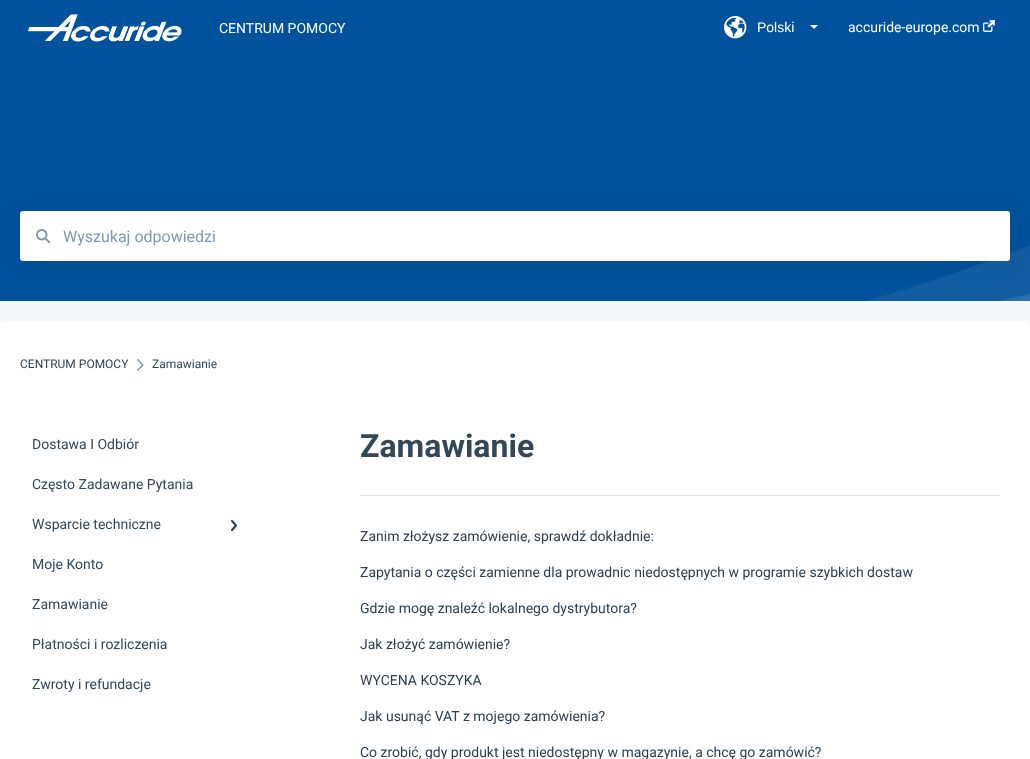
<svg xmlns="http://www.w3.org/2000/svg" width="1030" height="759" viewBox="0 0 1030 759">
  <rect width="100%" height="100%" fill="#f5f8fa"/>
  <path d="M0 0h1030v301H0z" fill="#00529c"/>
  <image x="27" y="14" width="155" height="28" href="img/1.png"/>
  <image x="724" y="16" width="23" height="23" href="img/2.png"/>
  <path d="M810 25H818L814 29Z" fill="#fff"/>
  <image x="983" y="20" width="12" height="12" href="img/3.png"/>
  <image x="867" y="246" width="163" height="55" href="img/4.png"/>
  <rect x="20" y="212" width="990" height="50" rx="3" fill="#00000014" filter="blur(12px)"/>
  <rect x="20" y="211" width="990" height="50" rx="3" fill="#fff"/>
  <image x="36" y="229" width="15" height="15" href="img/5.png"/>
  <rect y="321" width="1030" height="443" rx="5" fill="#fff"/>
  <image x="137" y="359" width="7" height="12" href="img/6.png"/>
  <path d="M232 521L236 525.5L232 530" fill="none" stroke="#2d3e50" stroke-width="2" stroke-linecap="round" stroke-linejoin="round"/>
  <path d="M360 495h640v1H360z" fill="#dfe3eb"/>
  <text x="219" y="33" font-family="Roboto" font-size="14" fill="#fff">CENTRUM POMOCY</text>
  <text x="757" y="32" font-family="Liberation Sans" font-size="14" fill="#fff">Polski</text>
  <text x="848" y="32" font-family="Roboto" font-size="14" fill="#fff">accuride-europe.com</text>
  <text x="63" y="242" font-family="Roboto" font-size="16" fill="#7c98b6">Wyszukaj odpowiedzi</text>
  <text x="20" y="368" font-family="Roboto" font-size="12" fill="#2d3e50">CENTRUM POMOCY</text>
  <text x="152" y="368" font-family="Roboto" font-size="12" fill="#33475b">Zamawianie</text>
  <g font-family="Roboto" font-size="14" fill="#33475b">
    <text x="32" y="449">Dostawa I Odbiór</text>
    <text x="32" y="489">Często Zadawane Pytania</text>
    <text x="32" y="529">Wsparcie techniczne</text>
    <text x="32" y="569">Moje Konto</text>
    <text x="32" y="609">Zamawianie</text>
    <text x="32" y="649">Płatności i rozliczenia</text>
    <text x="32" y="689">Zwroty i refundacje</text>
  </g>
  <text x="360" y="457" font-family="Roboto" font-size="32" font-weight="bold" fill="#33475b">Zamawianie</text>
  <g font-family="Roboto" font-size="14" fill="#2d3e50">
    <text x="360" y="541">Zanim złożysz zamówienie, sprawdź dokładnie:</text>
    <text x="360" y="577">Zapytania o części zamienne dla prowadnic niedostępnych w programie szybkich dostaw</text>
    <text x="360" y="613">Gdzie mogę znaleźć lokalnego dystrybutora?</text>
    <text x="360" y="649">Jak złożyć zamówienie?</text>
    <text x="360" y="685">WYCENA KOSZYKA</text>
    <text x="360" y="721">Jak usunąć VAT z mojego zamówienia?</text>
    <text x="360" y="757">Co zrobić, gdy produkt jest niedostępny w magazynie, a chcę go zamówić?</text>
  </g>
</svg>
